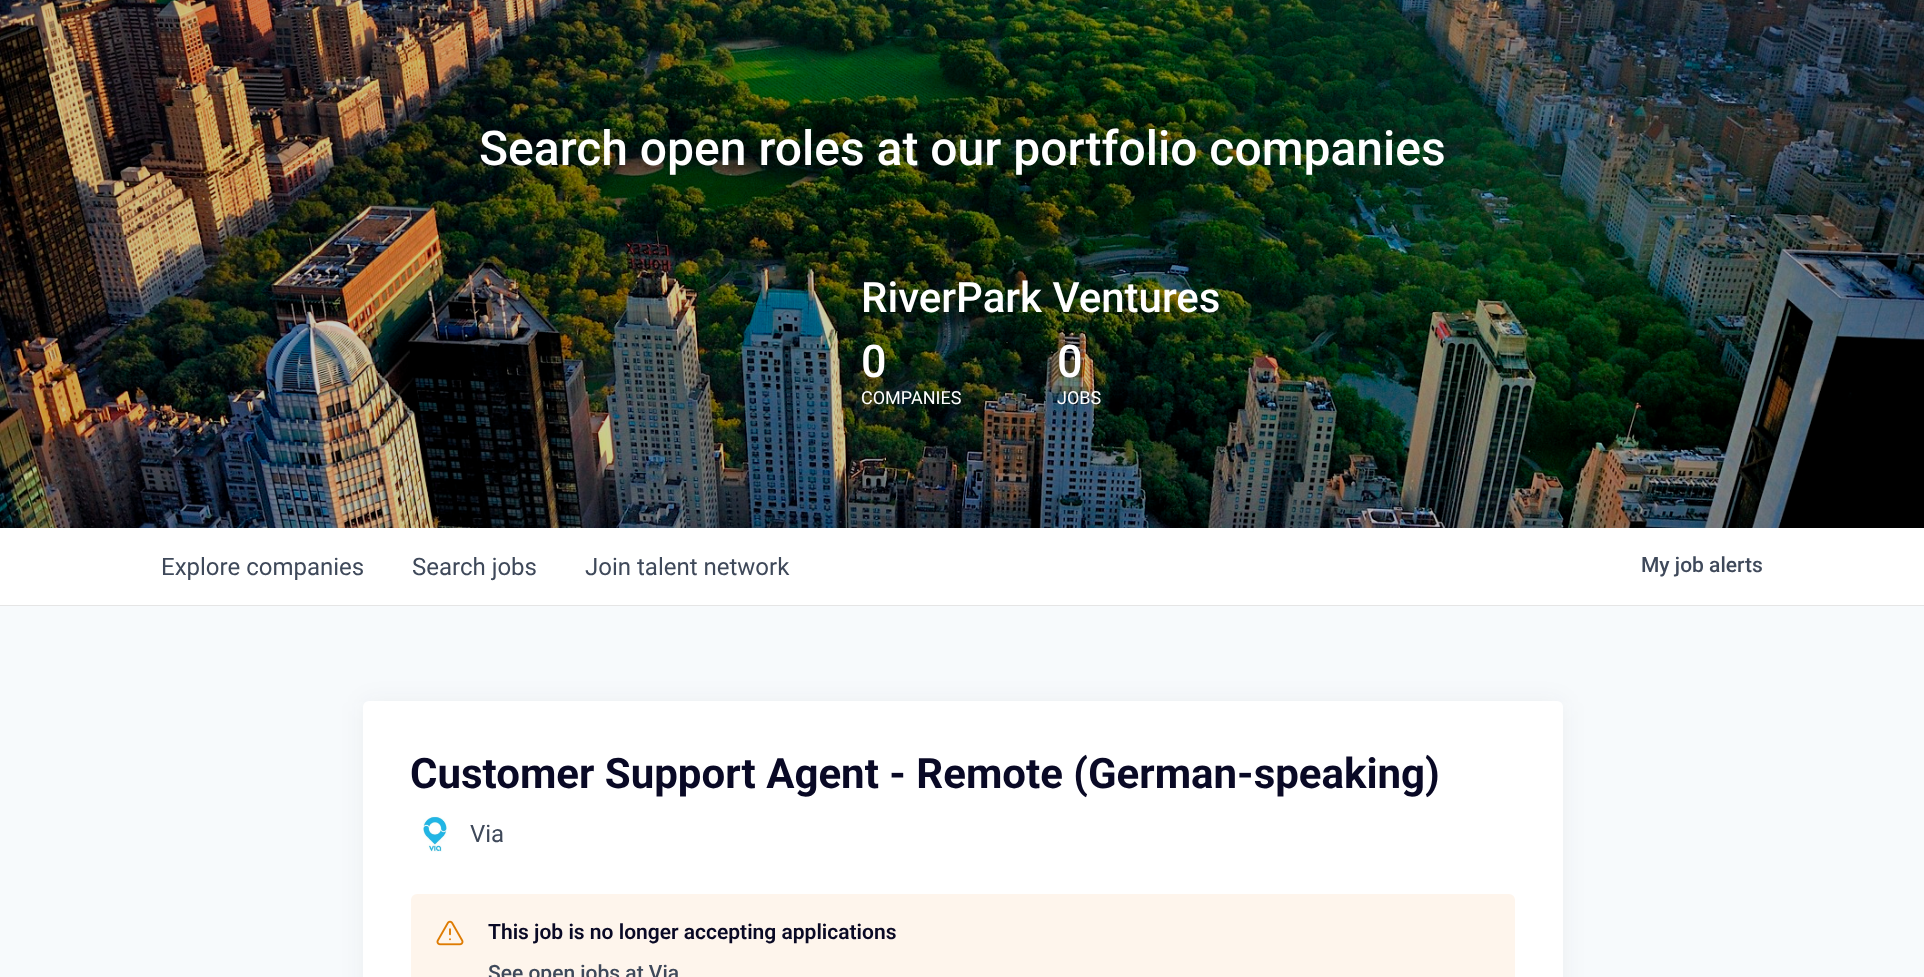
<svg xmlns="http://www.w3.org/2000/svg" width="1924" height="977" viewBox="0 0 1924 977">
  <rect width="100%" height="100%" fill="#f7fafc"/>
  <image x="0" y="0" width="1924" height="528" href="img/1.png"/>
  <path d="M0 604V606H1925V530H1924V604Z" fill="#e5e5e5"/>
  <path d="M0 528h1924v77H0z" fill="#fff"/>
  <rect x="363" y="702" width="1200" height="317" rx="6" fill="#1b24320f" filter="blur(12px)"/>
  <rect x="363" y="701" width="1200" height="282" rx="6" fill="#fff"/>
  <image x="423" y="816" width="24" height="36" href="img/2.png"/>
  <rect x="411" y="894" width="1104" height="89" rx="6" fill="#fef5ec"/>
  <image x="436" y="920" width="28" height="26" href="img/3.png"/>
  <text x="479" y="165" font-family="Roboto" font-size="48" font-weight="500" fill="#fff">Search open roles at our portfolio companies</text>
  <text x="861" y="312" font-family="Roboto" font-size="42" font-weight="500" fill="#fff">RiverPark Ventures</text>
  <text x="861" y="377" font-family="Roboto" font-size="45" font-weight="500" fill="#fff">0</text>
  <text x="861" y="404" font-family="Roboto" font-size="18" fill="#fff">COMPANIES</text>
  <text x="1057" y="377" font-family="Roboto" font-size="45" font-weight="500" fill="#fff">0</text>
  <text x="1057" y="404" font-family="Roboto" font-size="18" fill="#fff">JOBS</text>
  <g font-family="Roboto" font-size="24" fill="#3f495a">
    <text x="161" y="575">Explore companies</text>
    <text x="412" y="575">Search jobs</text>
    <text x="585" y="575">Join talent network</text>
  </g>
  <text x="1641" y="572" font-family="Roboto" font-size="21" font-weight="500" fill="#3f495a">My job alerts</text>
  <text x="410" y="788" font-family="Roboto" font-size="42" font-weight="bold" fill="#090925">Customer Support Agent - Remote (German-speaking)</text>
  <text x="470" y="842" font-family="Roboto" font-size="24" fill="#3f495a">Via</text>
  <text x="488" y="939" font-family="Roboto" font-size="21" font-weight="600" fill="#090925">This job is no longer accepting applications</text>
  <text x="488" y="980" font-family="Roboto" font-size="21" font-weight="500" fill="#3f495a">See open jobs at Via</text>
</svg>
